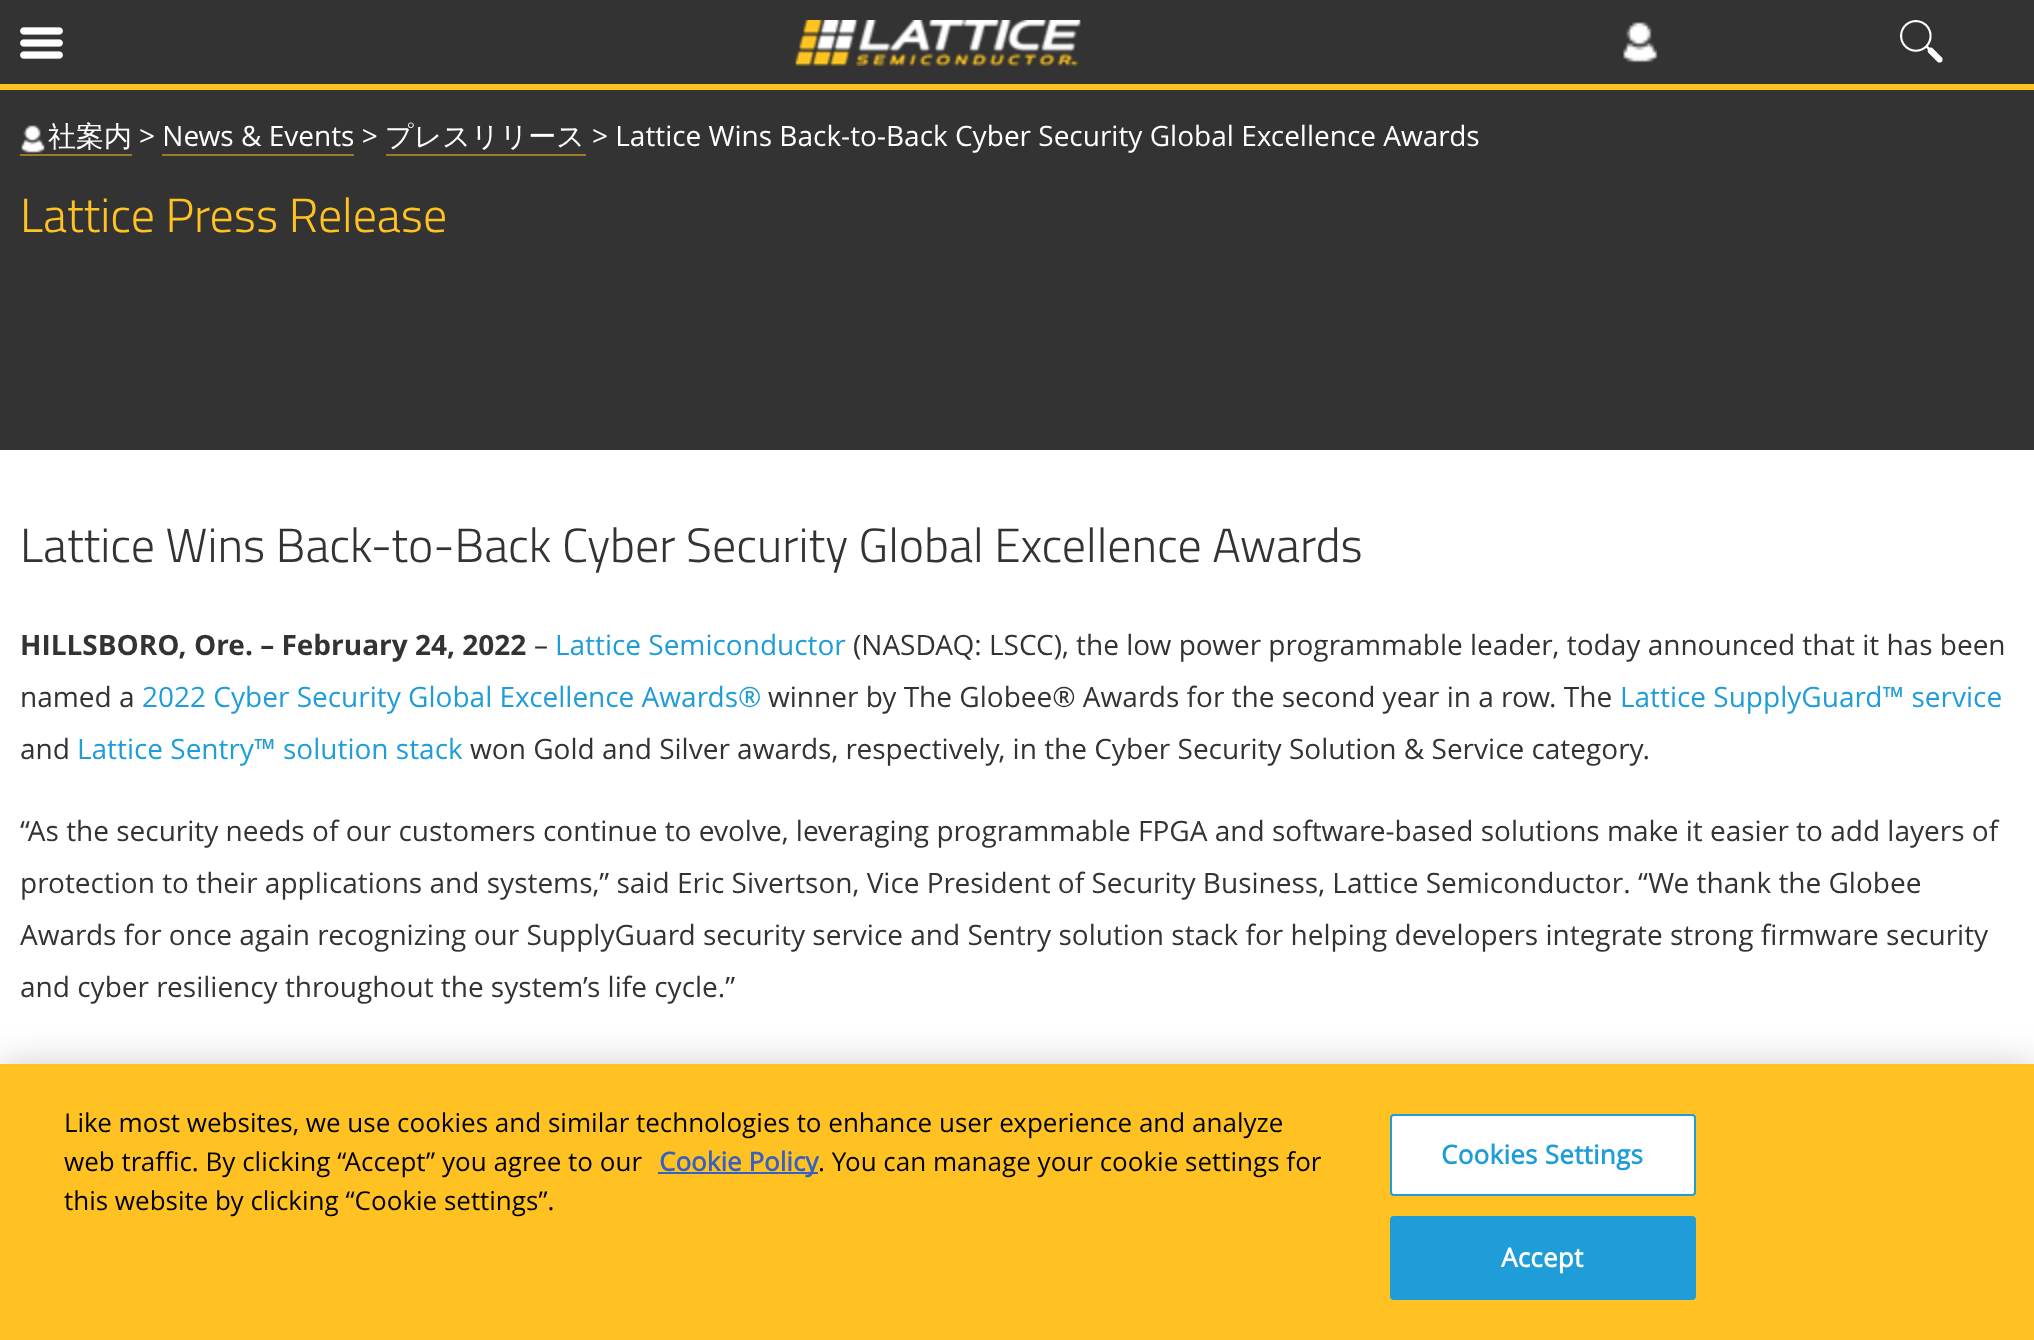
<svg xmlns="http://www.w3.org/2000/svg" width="2034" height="1340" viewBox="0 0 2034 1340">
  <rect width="100%" height="100%" fill="#fff"/>
  <path d="M0 0h2034v84H0z" fill="#333"/>
  <path d="M0 84h2034v6H0z" fill="#ffc222"/>
  <image x="20" y="27" width="43" height="32" href="img/1.png"/>
  <image x="795" y="20" width="286" height="46" href="img/2.png"/>
  <image x="1623" y="22" width="35" height="41" href="img/3.png"/>
  <image x="1900" y="20" width="43" height="43" href="img/4.png"/>
  <path d="M0 90h2034v360H0z" fill="#333"/>
  <image x="21" y="125" width="24" height="28" href="img/5.png"/>
  <path d="M20 154h112v2H20z" fill="#997b2b"/>
  <path d="M386 154h200v2H386z" fill="#997b2b"/>
  <path d="M162 154h192v2H162z" fill="#997b2b"/>
  <path d="M0 1064h2034v276H0z" fill="#00000033" filter="blur(18px)"/>
  <path d="M0 1064h2034v276H0z" fill="#ffc222"/>
  <path d="M658 1172h160v2H658z" fill="#3860be"/>
  <rect x="1391" y="1115" width="304" height="80" rx="3" fill="#fff" stroke="#1f9dd8" stroke-width="2"/>
  <rect x="1391" y="1217" width="304" height="82" rx="3" fill="#1f9dd8" stroke="#1f9dd8" stroke-width="2"/>
  <text x="48" y="146" font-family="WenQuanYi Zen Hei" font-size="28" font-weight="500" fill="#fff">社案内</text>
  <text x="139" y="146" font-family="Open Sans" font-size="28" fill="#fff">&gt; News &amp; Events &gt;</text>
  <text x="385" y="146" font-family="WenQuanYi Zen Hei" font-size="28" font-weight="500" fill="#fff">プレスリリース</text>
  <text x="592" y="146" font-family="Open Sans" font-size="28" fill="#fff">&gt; Lattice Wins Back-to-Back Cyber Security Global Excellence Awards</text>
  <text x="20" y="232" font-family="Titillium Web" font-size="48" font-weight="300" fill="#ffc222">Lattice Press Release</text>
  <text x="20" y="562" font-family="Titillium Web" font-size="48" font-weight="300" fill="#333">Lattice Wins Back-to-Back Cyber Security Global Excellence Awards</text>
  <text x="20" y="655" font-family="Open Sans" font-size="28" font-weight="bold" fill="#333">HILLSBORO, Ore. – February 24, 2022</text>
  <text x="534" y="655" font-family="Open Sans" font-size="28" fill="#333">–</text>
  <text x="555" y="655" font-family="Open Sans" font-size="28" fill="#1f9dd8">Lattice Semiconductor</text>
  <g font-family="Open Sans" font-size="28" fill="#333">
    <text x="853" y="655">(NASDAQ: LSCC), the low power programmable leader, today announced that it has been</text>
    <text x="20" y="707">named a</text>
  </g>
  <text x="142" y="707" font-family="Open Sans" font-size="28" fill="#1f9dd8">2022 Cyber Security Global Excellence Awards®</text>
  <text x="768" y="707" font-family="Open Sans" font-size="28" fill="#333">winner by The Globee® Awards for the second year in a row. The</text>
  <text x="1620" y="707" font-family="Open Sans" font-size="28" fill="#1f9dd8">Lattice SupplyGuard™ service</text>
  <text x="20" y="759" font-family="Open Sans" font-size="28" fill="#333">and</text>
  <text x="77" y="759" font-family="Open Sans" font-size="28" fill="#1f9dd8">Lattice Sentry™ solution stack</text>
  <g font-family="Open Sans" font-size="28" fill="#333">
    <text x="470" y="759">won Gold and Silver awards, respectively, in the Cyber Security Solution &amp; Service category.</text>
    <text x="20" y="841">“As the security needs of our customers continue to evolve, leveraging programmable FPGA and software-based solutions make it easier to add layers of</text>
    <text x="20" y="893">protection to their applications and systems,” said Eric Sivertson, Vice President of Security Business, Lattice Semiconductor. “We thank the Globee</text>
    <text x="20" y="945">Awards for once again recognizing our SupplyGuard security service and Sentry solution stack for helping developers integrate strong firmware security</text>
    <text x="20" y="997">and cyber resiliency throughout the system’s life cycle.”</text>
  </g>
  <g font-family="Open Sans" font-size="26" fill="#000">
    <text x="64" y="1132">Like most websites, we use cookies and similar technologies to enhance user experience and analyze</text>
    <text x="64" y="1171">web traffic. By clicking “Accept” you agree to our</text>
  </g>
  <text x="659" y="1171" font-family="'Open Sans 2'" font-size="26" font-weight="bold" fill="#3860be">Cookie Policy</text>
  <g font-family="Open Sans" font-size="26" fill="#000">
    <text x="818" y="1171">. You can manage your cookie settings for</text>
    <text x="64" y="1210">this website by clicking “Cookie settings”.</text>
  </g>
  <text x="1441" y="1164" font-family="'Open Sans 2'" font-size="26" font-weight="bold" letter-spacing="0.25" fill="#1f9dd8">Cookies Settings</text>
  <text x="1501" y="1267" font-family="'Open Sans 2'" font-size="26" font-weight="bold" letter-spacing="0.25" fill="#fff">Accept</text>
</svg>
